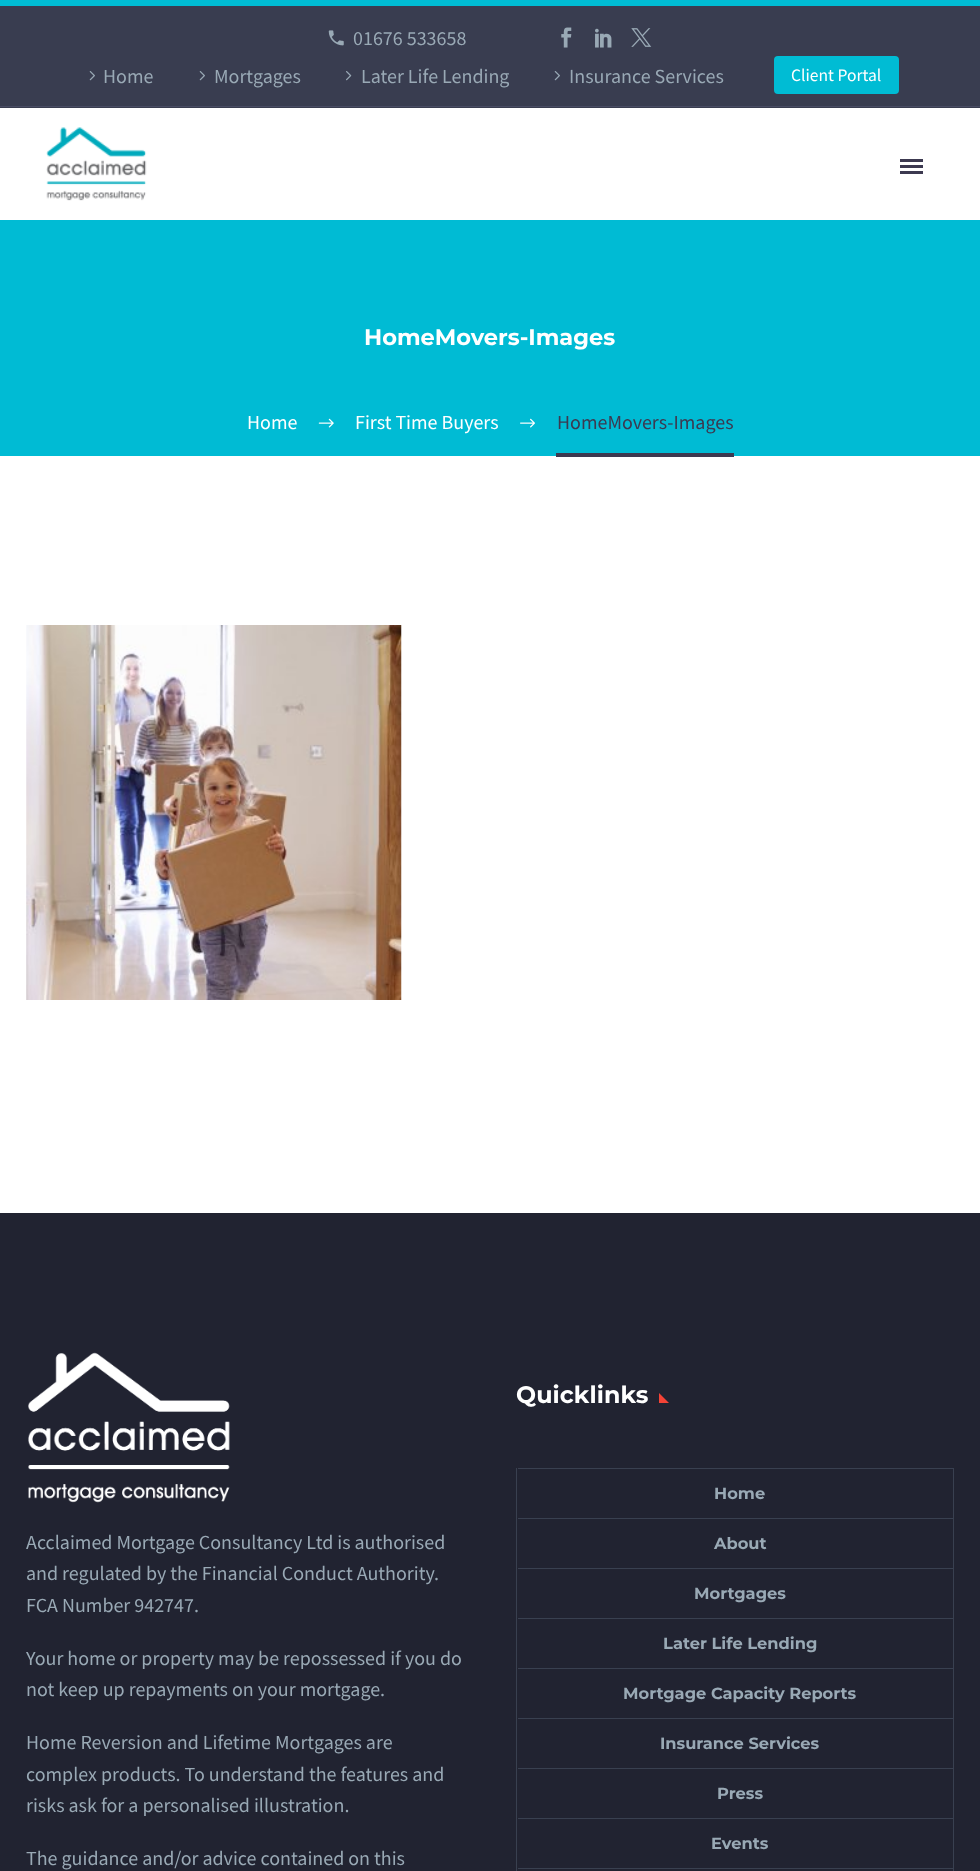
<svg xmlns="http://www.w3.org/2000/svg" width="980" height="1871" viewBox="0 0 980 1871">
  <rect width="100%" height="100%" fill="#fff"/>
  <path d="M0 6h980v102H0z" fill="#393d50"/>
  <path d="M0 0h980v6H0z" fill="#00bcd4"/>
  <path d="M0 106h980v1H0z" fill="#494c64"/>
  <image x="328" y="30" width="16" height="16" href="img/1.png"/>
  <image x="561" y="27" width="11" height="21" href="img/2.png"/>
  <image x="595" y="28" width="17" height="20" href="img/3.png"/>
  <image x="631" y="28" width="21" height="19" href="img/4.png"/>
  <image x="89" y="71" width="6" height="10" href="img/5.png"/>
  <image x="199" y="71" width="6" height="10" href="img/5.png"/>
  <image x="346" y="71" width="6" height="10" href="img/6.png"/>
  <image x="554" y="71" width="6" height="10" href="img/5.png"/>
  <rect x="774" y="56" width="125" height="38" rx="4" fill="#00bcd4"/>
  <image x="46" y="127" width="101" height="74" href="img/7.png"/>
  <path d="M900 159h23v3H900z" fill="#3c3950"/>
  <path d="M900 165h23v3H900z" fill="#3c3950"/>
  <path d="M900 171h23v3H900z" fill="#3c3950"/>
  <path d="M0 220h980v236H0z" fill="#00bbd4"/>
  <image x="318" y="418" width="16" height="10" href="img/8.png"/>
  <image x="520" y="418" width="15" height="10" href="img/9.png"/>
  <path d="M556 453h178v4H556z" fill="#3c3950"/>
  <image x="26" y="625" width="376" height="375" href="img/10.png"/>
  <path d="M0 1213h980v658H0z" fill="#212331"/>
  <image x="28" y="1352" width="202" height="151" href="img/11.png"/>
  <path d="M659 1393V1403H669Z" fill="#f44336"/>
  <path d="M953 1468h1v403H953z" fill="#394050"/>
  <path d="M516 1468h1v403H516z" fill="#394050"/>
  <path d="M518 1468h435v1H518z" fill="#394050"/>
  <path d="M518 1518h435v1H518z" fill="#394050"/>
  <path d="M518 1568h435v1H518z" fill="#394050"/>
  <path d="M518 1618h435v1H518z" fill="#394050"/>
  <path d="M518 1668h435v1H518z" fill="#394050"/>
  <path d="M518 1718h435v1H518z" fill="#394050"/>
  <path d="M518 1768h435v1H518z" fill="#394050"/>
  <path d="M518 1818h435v1H518z" fill="#394050"/>
  <path d="M518 1868h435v1H518z" fill="#394050"/>
  <g font-family="Source Sans Pro" font-size="20" fill="#99a9b5">
    <text x="353" y="45">01676 533658</text>
    <text x="103" y="83">Home</text>
    <text x="214" y="83">Mortgages</text>
    <text x="361" y="83">Later Life Lending</text>
    <text x="569" y="83">Insurance Services</text>
  </g>
  <text x="791" y="81" font-family="Source Sans Pro" font-size="17.5" fill="#fff">Client Portal</text>
  <text x="364" y="345" font-family="Montserrat" font-size="22.5" font-weight="100" fill="#fff">HomeMovers-Images</text>
  <g font-family="Source Sans Pro" font-size="20" fill="#fff">
    <text x="247" y="429">Home</text>
    <text x="355" y="429">First Time Buyers</text>
  </g>
  <text x="557" y="429" font-family="Source Sans Pro" font-size="20" fill="#3c3950">HomeMovers-Images</text>
  <g font-family="Source Sans Pro" font-size="20" fill="#99a9b5">
    <text x="26" y="1549">Acclaimed Mortgage Consultancy Ltd is authorised</text>
    <text x="26" y="1580">and regulated by the Financial Conduct Authority.</text>
    <text x="26" y="1612">FCA Number 942747.</text>
    <text x="26" y="1665">Your home or property may be repossessed if you do</text>
    <text x="26" y="1696">not keep up repayments on your mortgage.</text>
    <text x="26" y="1749">Home Reversion and Lifetime Mortgages are</text>
    <text x="26" y="1781">complex products. To understand the features and</text>
    <text x="26" y="1812">risks ask for a personalised illustration.</text>
    <text x="26" y="1865">The guidance and/or advice contained on this</text>
  </g>
  <text x="516" y="1403" font-family="Montserrat" font-size="23.75" font-weight="100" letter-spacing="0.1" fill="#fff">Quicklinks</text>
  <g font-family="Montserrat" font-size="16.25" font-weight="100" fill="#99a9b5">
    <text x="714" y="1499">Home</text>
    <text x="714" y="1549">About</text>
    <text x="694" y="1599">Mortgages</text>
    <text x="663" y="1649">Later Life Lending</text>
    <text x="623" y="1699">Mortgage Capacity Reports</text>
    <text x="660" y="1749">Insurance Services</text>
    <text x="717" y="1799">Press</text>
    <text x="711" y="1849">Events</text>
  </g>
</svg>
